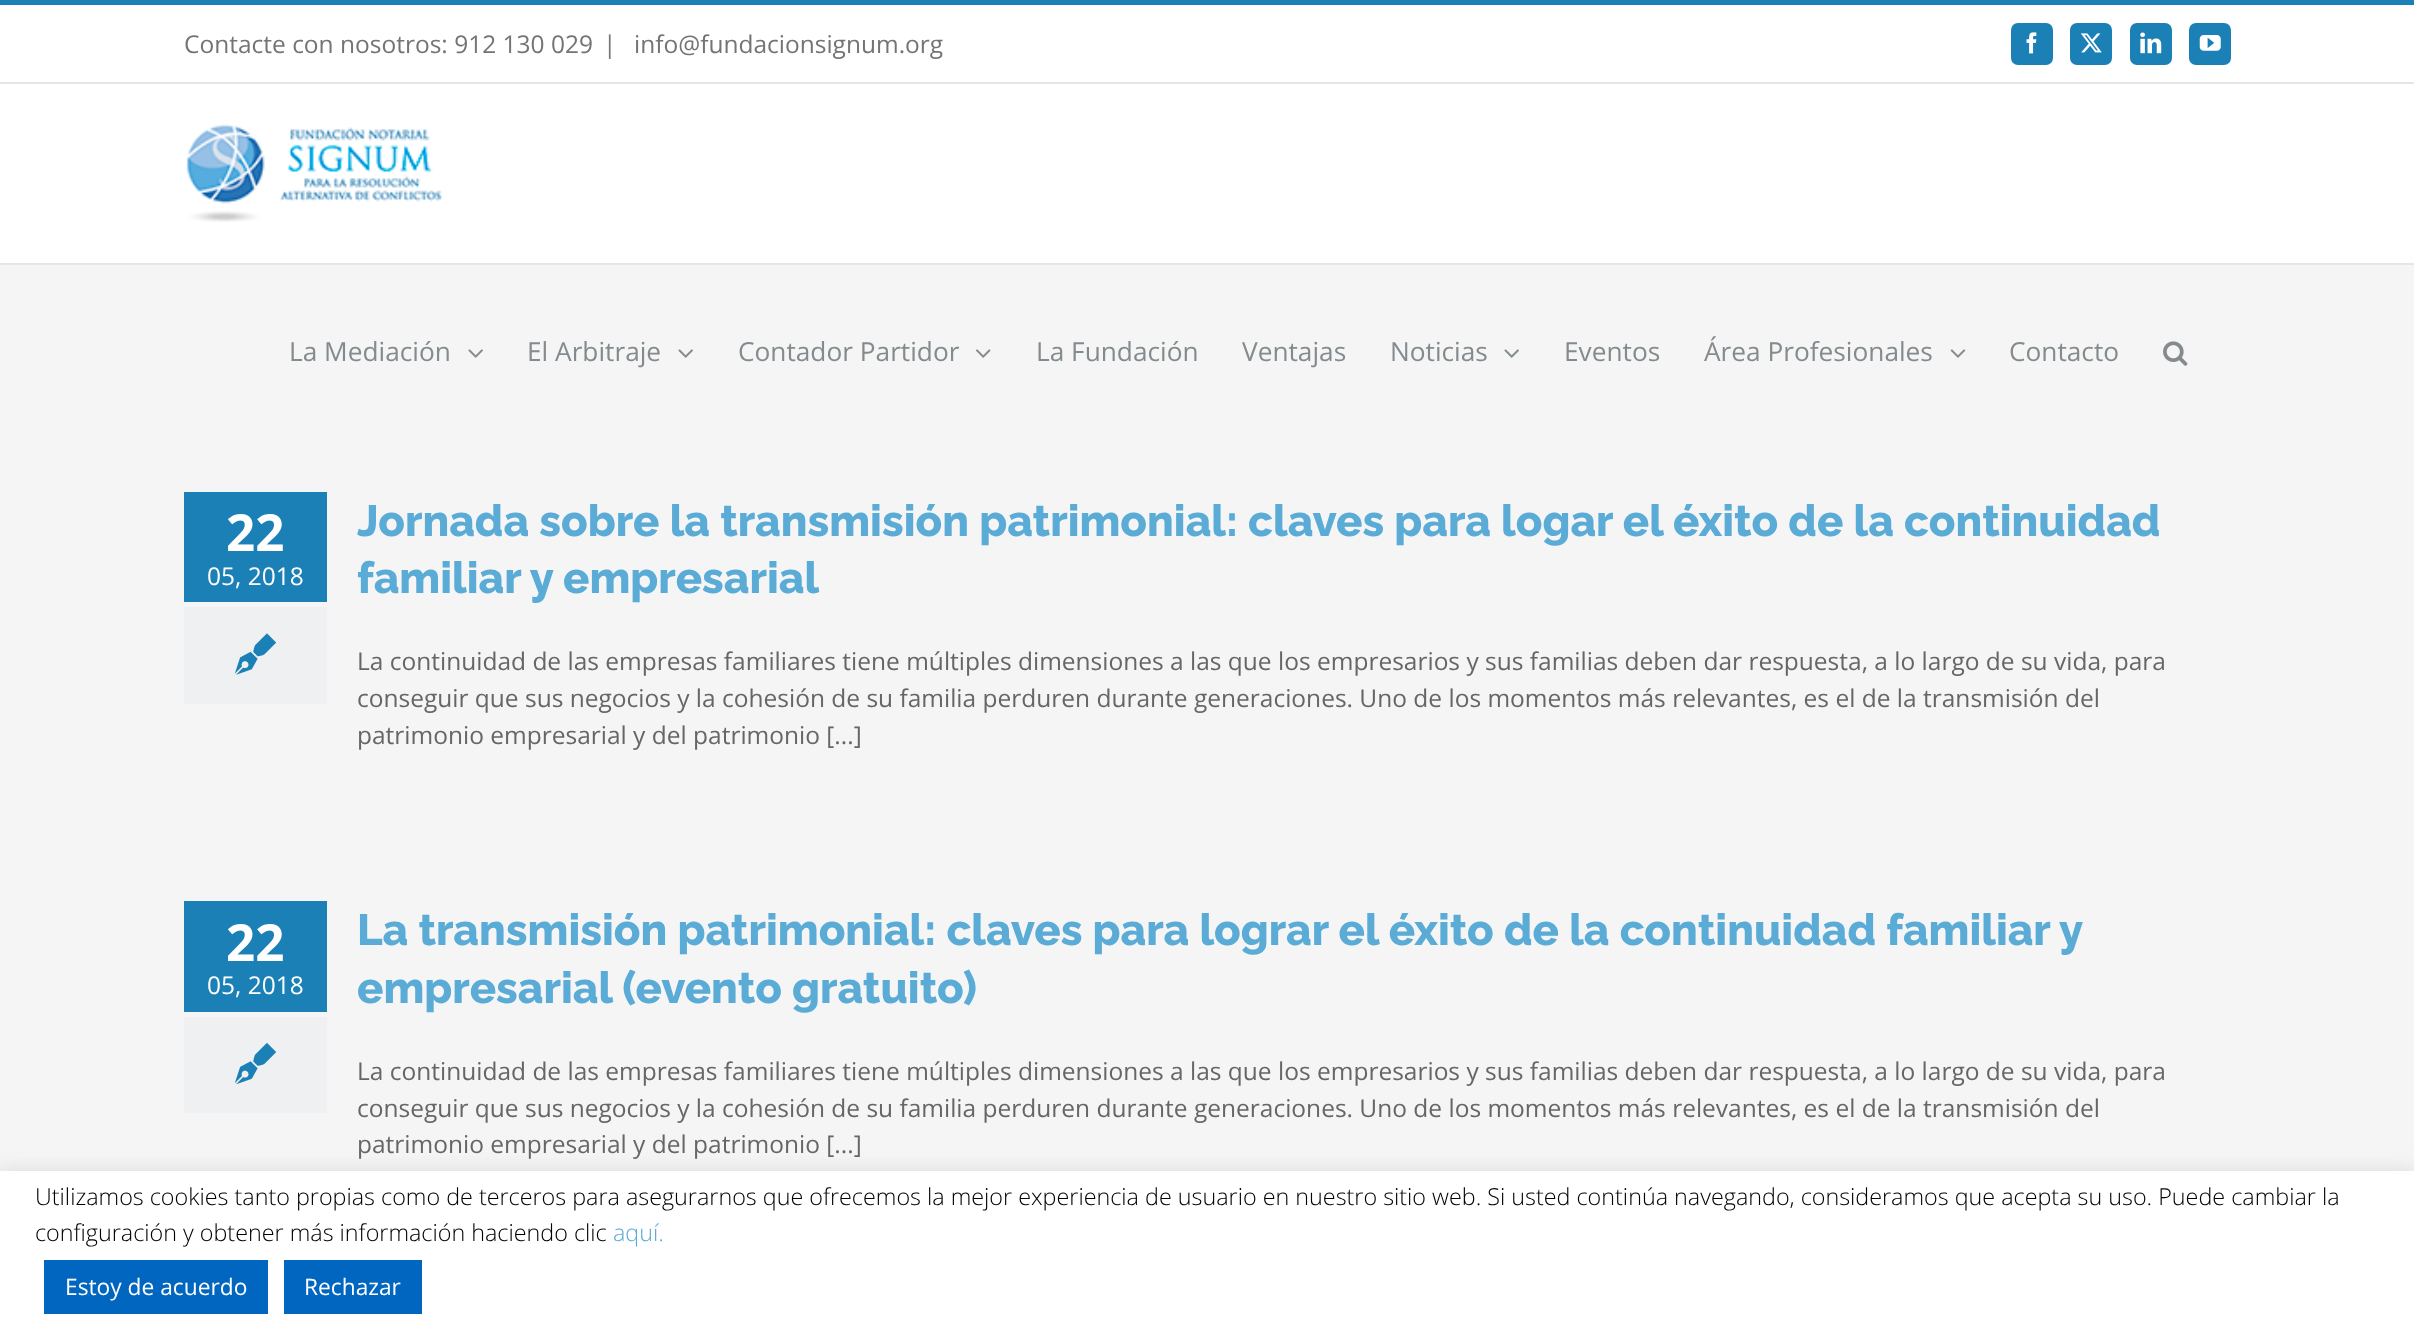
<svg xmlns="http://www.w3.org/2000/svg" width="2414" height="1322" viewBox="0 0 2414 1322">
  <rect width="100%" height="100%" fill="#f5f5f5"/>
  <path d="M0 5h2414v77H0z" fill="#fff"/>
  <path d="M0 0h2414v5H0z" fill="#1a80b6"/>
  <path d="M0 82h2414v2H0z" fill="#e5e5e5"/>
  <rect x="2012" y="24" width="40" height="40" rx="6" fill="#1a80b6" stroke="#1a80b6" stroke-width="2"/>
  <image x="2026" y="32" width="11" height="22" href="img/1.png"/>
  <rect x="2071" y="24" width="40" height="40" rx="6" fill="#1a80b6" stroke="#1a80b6" stroke-width="2"/>
  <image x="2080" y="33" width="22" height="20" href="img/2.png"/>
  <rect x="2131" y="24" width="40" height="40" rx="6" fill="#1a80b6" stroke="#1a80b6" stroke-width="2"/>
  <image x="2140" y="32" width="22" height="22" href="img/3.png"/>
  <rect x="2190" y="24" width="40" height="40" rx="6" fill="#1a80b6" stroke="#1a80b6" stroke-width="2"/>
  <image x="2199" y="35" width="22" height="16" href="img/4.png"/>
  <path d="M0 84h2414v179H0z" fill="#fff"/>
  <path d="M0 263h2414v2H0z" fill="#e5e5e5"/>
  <image x="186" y="124" width="256" height="98" href="img/5.png"/>
  <image x="468" y="349" width="15" height="9" href="img/6.png"/>
  <image x="678" y="349" width="15" height="9" href="img/6.png"/>
  <image x="976" y="349" width="15" height="9" href="img/7.png"/>
  <image x="1504" y="349" width="15" height="9" href="img/6.png"/>
  <image x="1950" y="349" width="16" height="9" href="img/8.png"/>
  <image x="2163" y="341" width="25" height="25" href="img/9.png"/>
  <path d="M184 492h143v110H184z" fill="#1a80b6"/>
  <path d="M184 607h143v97H184z" fill="#eef0f2"/>
  <image x="234" y="633" width="43" height="42" href="img/10.png"/>
  <path d="M184 901h143v111H184z" fill="#1a80b6"/>
  <path d="M184 1017h143v96H184z" fill="#eef0f2"/>
  <image x="234" y="1042" width="43" height="43" href="img/11.png"/>
  <path d="M0 1169h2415v152H0z" fill="#acabab4d" filter="blur(9px)"/>
  <path d="M0 1171h2414v151H0z" fill="#fff"/>
  <path d="M44 1260h224v54H44z" fill="#0066bf"/>
  <path d="M284 1260h138v54H284z" fill="#0066bf"/>
  <g font-family="Open Sans" font-size="24.5" fill="#747474">
    <text x="184" y="53">Contacte con nosotros: 912 130 029</text>
    <text x="603" y="53">|</text>
    <text x="634" y="53">info@fundacionsignum.org</text>
  </g>
  <g font-family="Open Sans" font-size="26.25" fill="#848b8e">
    <text x="289" y="361">La Mediación</text>
    <text x="527" y="361">El Arbitraje</text>
    <text x="738" y="361">Contador Partidor</text>
    <text x="1036" y="361">La Fundación</text>
    <text x="1242" y="361">Ventajas</text>
    <text x="1390" y="361">Noticias</text>
    <text x="1564" y="361">Eventos</text>
    <text x="1704" y="361">Área Profesionales</text>
    <text x="2009" y="361">Contacto</text>
  </g>
  <text x="226" y="551" font-family="Open Sans" font-size="51" font-weight="bold" fill="#fff">22</text>
  <text x="207" y="585" font-family="Open Sans" font-size="24.5" fill="#fff">05, 2018</text>
  <g font-family="Raleway" font-size="43.75" font-weight="100" fill="#5aabd6">
    <text x="357" y="536">Jornada sobre la transmisión patrimonial: claves para logar el éxito de la continuidad</text>
    <text x="357" y="593">familiar y empresarial</text>
  </g>
  <g font-family="Open Sans" font-size="24.5" fill="#666">
    <text x="357" y="670">La continuidad de las empresas familiares tiene múltiples dimensiones a las que los empresarios y sus familias deben dar respuesta, a lo largo de su vida, para</text>
    <text x="357" y="707">conseguir que sus negocios y la cohesión de su familia perduren durante generaciones. Uno de los momentos más relevantes, es el de la transmisión del</text>
    <text x="357" y="744">patrimonio empresarial y del patrimonio [...]</text>
  </g>
  <text x="226" y="961" font-family="Open Sans" font-size="51" font-weight="bold" fill="#fff">22</text>
  <text x="207" y="994" font-family="Open Sans" font-size="24.5" fill="#fff">05, 2018</text>
  <g font-family="Raleway" font-size="43.75" font-weight="100" fill="#5aabd6">
    <text x="357" y="945">La transmisión patrimonial: claves para lograr el éxito de la continuidad familiar y</text>
    <text x="357" y="1003">empresarial (evento gratuito)</text>
  </g>
  <g font-family="Open Sans" font-size="24.5" fill="#666">
    <text x="357" y="1080">La continuidad de las empresas familiares tiene múltiples dimensiones a las que los empresarios y sus familias deben dar respuesta, a lo largo de su vida, para</text>
    <text x="357" y="1117">conseguir que sus negocios y la cohesión de su familia perduren durante generaciones. Uno de los momentos más relevantes, es el de la transmisión del</text>
    <text x="357" y="1153">patrimonio empresarial y del patrimonio [...]</text>
  </g>
  <g font-family="Open Sans" font-size="23.33" font-weight="300" fill="#000">
    <text x="35" y="1205">Utilizamos cookies tanto propias como de terceros para asegurarnos que ofrecemos la mejor experiencia de usuario en nuestro sitio web. Si usted continúa navegando, consideramos que acepta su uso. Puede cambiar la</text>
    <text x="35" y="1241">configuración y obtener más información haciendo clic</text>
  </g>
  <text x="613" y="1241" font-family="Open Sans" font-size="23.33" font-weight="300" fill="#5aabd6">aquí.</text>
  <g font-family="Open Sans" font-size="22.75" fill="#fff">
    <text x="65" y="1295">Estoy de acuerdo</text>
    <text x="304" y="1295">Rechazar</text>
  </g>
</svg>
